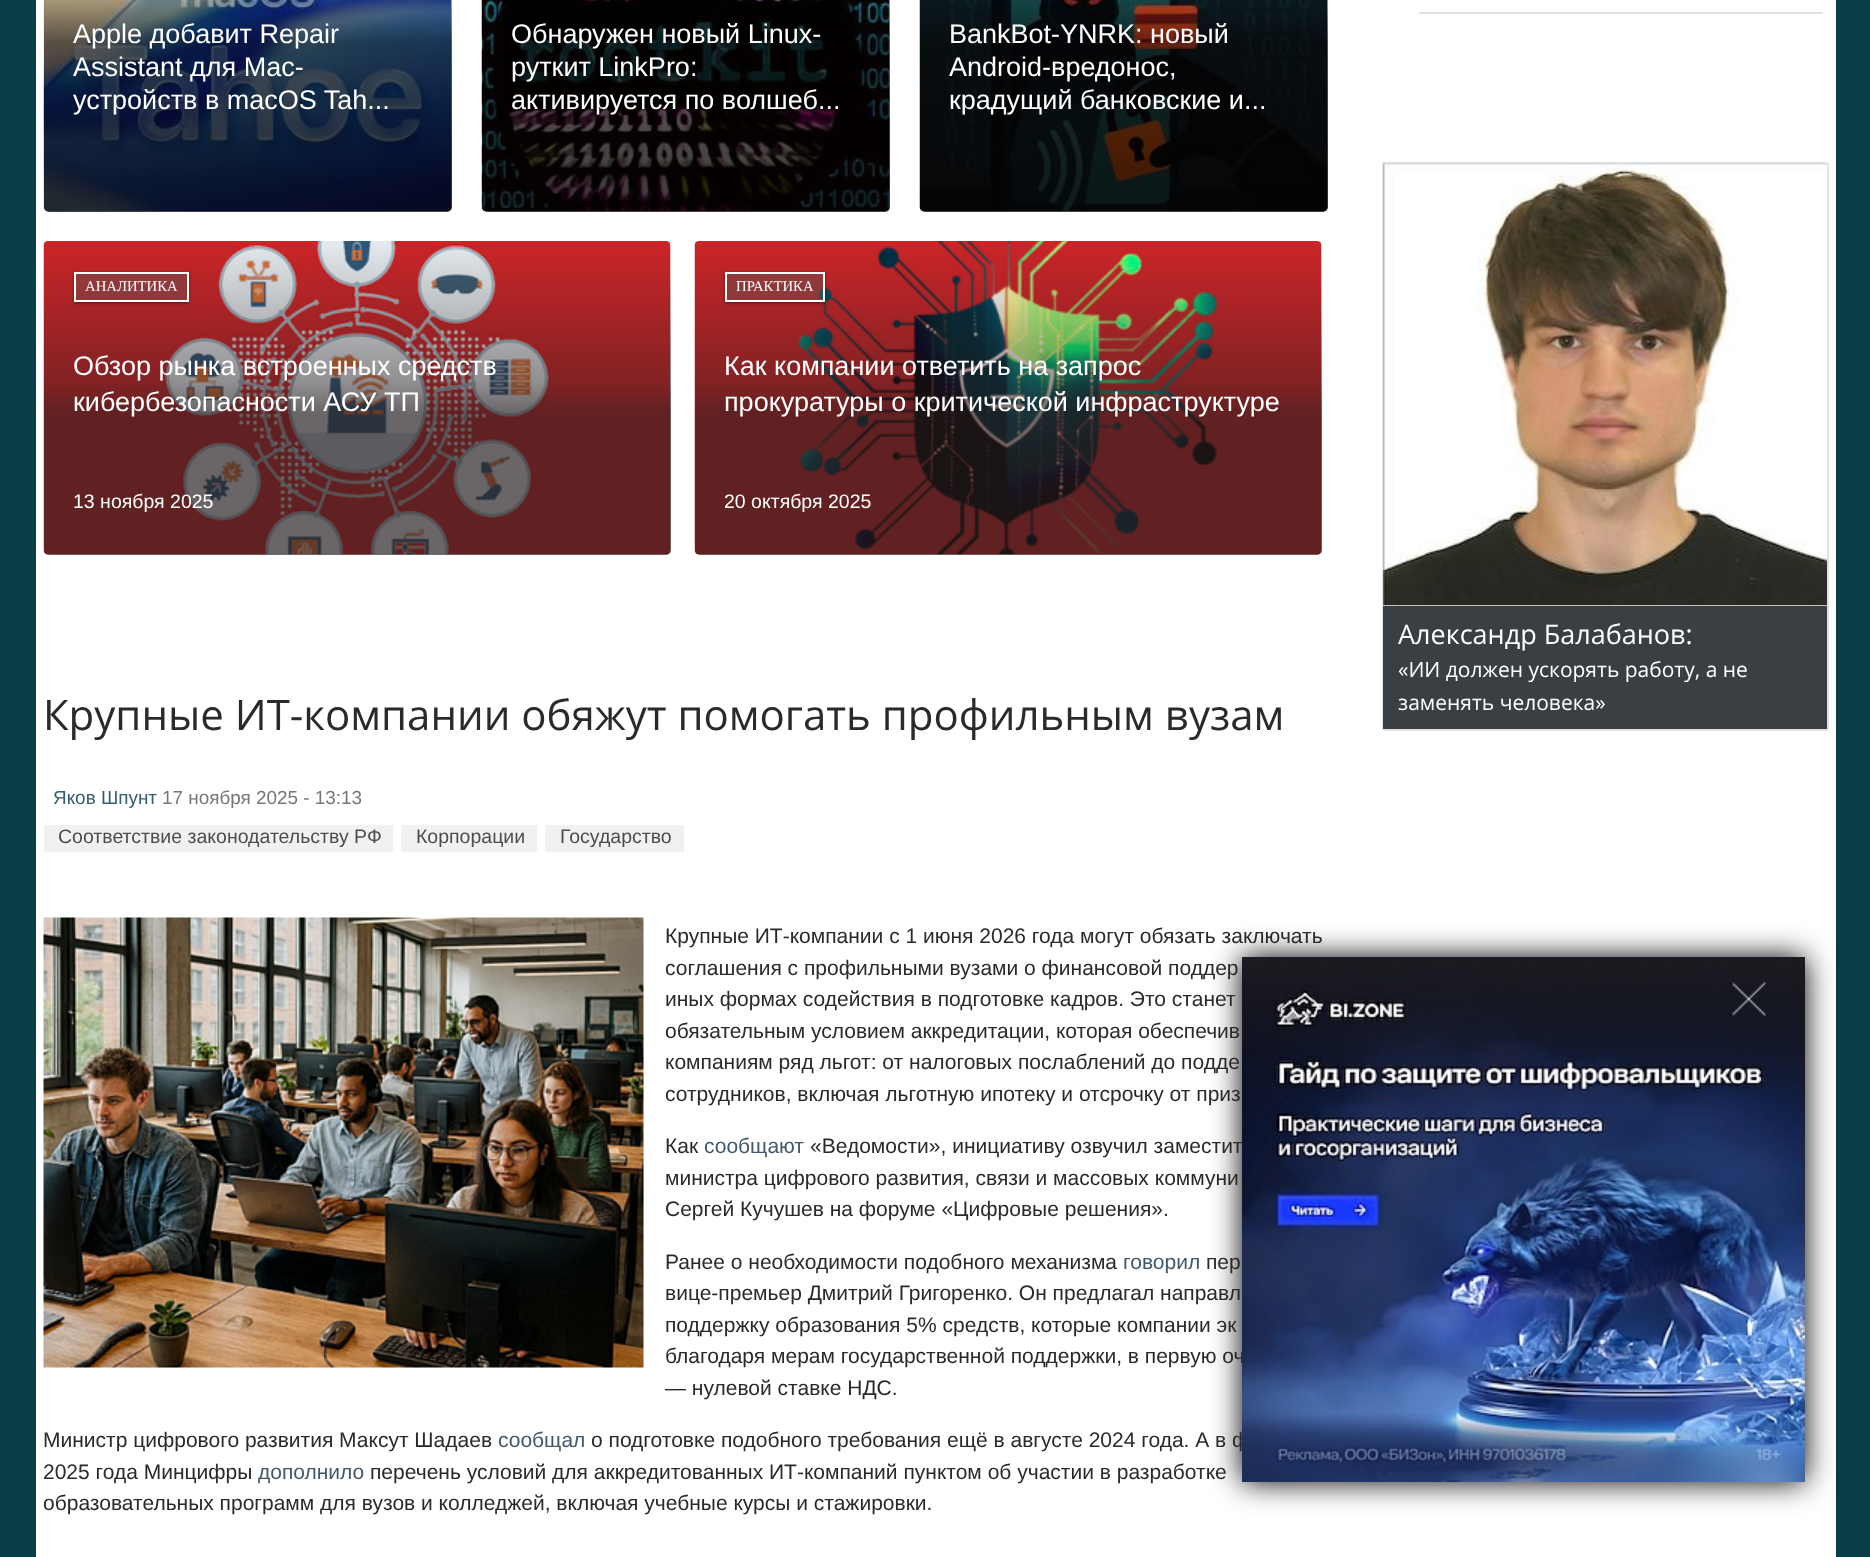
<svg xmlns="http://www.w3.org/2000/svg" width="1870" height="1557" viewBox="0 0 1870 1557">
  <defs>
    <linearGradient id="g1" gradientUnits="userSpaceOnUse" x1="248" y1="-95" x2="248" y2="212"><stop offset="0.2" stop-color="#050000" stop-opacity="0"/><stop offset="0.45" stop-color="#050000" stop-opacity="0.6"/><stop offset="0.9" stop-color="#050000" stop-opacity="0.75"/></linearGradient>
    <linearGradient id="g2" gradientUnits="userSpaceOnUse" x1="686" y1="-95" x2="686" y2="212"><stop offset="0.2" stop-color="#050000" stop-opacity="0"/><stop offset="0.45" stop-color="#050000" stop-opacity="0.6"/><stop offset="0.9" stop-color="#050000" stop-opacity="0.75"/></linearGradient>
    <linearGradient id="g3" gradientUnits="userSpaceOnUse" x1="1124" y1="-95" x2="1124" y2="212"><stop offset="0.2" stop-color="#050000" stop-opacity="0"/><stop offset="0.45" stop-color="#050000" stop-opacity="0.6"/><stop offset="0.9" stop-color="#050000" stop-opacity="0.75"/></linearGradient>
    <linearGradient id="g4" gradientUnits="userSpaceOnUse" x1="357" y1="241" x2="357" y2="555"><stop offset="0" stop-color="#281e1e" stop-opacity="0"/><stop offset="0.45" stop-color="#281e1e" stop-opacity="0.45"/><stop offset="0.55" stop-color="#281e1e" stop-opacity="0.65"/></linearGradient>
    <clipPath id="clip1"><path d="M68 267H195V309H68ZM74 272H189V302H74Z" clip-rule="evenodd"/></clipPath>
    <linearGradient id="g5" gradientUnits="userSpaceOnUse" x1="1008" y1="241" x2="1008" y2="555"><stop offset="0" stop-color="#281e1e" stop-opacity="0"/><stop offset="0.45" stop-color="#281e1e" stop-opacity="0.45"/><stop offset="0.55" stop-color="#281e1e" stop-opacity="0.65"/></linearGradient>
    <clipPath id="clip2"><path d="M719 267H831V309H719ZM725 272H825V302H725Z" clip-rule="evenodd"/></clipPath>
  </defs>
  <rect width="100%" height="100%" fill="#083f46"/>
  <path d="M36 0h1800v1557H36z" fill="#fff"/>
  <image x="43" y="0" width="409" height="211" href="img/1.png"/>
  <rect x="44" y="-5" width="408" height="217" rx="5" fill="url(#g1)"/>
  <image x="481" y="0" width="409" height="211" href="img/2.png"/>
  <rect x="482" y="-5" width="408" height="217" rx="5" fill="url(#g2)"/>
  <image x="919" y="0" width="409" height="211" href="img/3.png"/>
  <rect x="920" y="-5" width="408" height="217" rx="5" fill="url(#g3)"/>
  <image x="43" y="241" width="628" height="314" href="img/4.png"/>
  <rect x="44" y="242" width="627" height="313" rx="5" fill="url(#g4)"/>
  <g clip-path="url(#clip1)">
    <path d="M74 273h115v30H74z" fill="#00000080" filter="blur(1.5px)"/>
  </g>
  <path d="M75 273h113v28H75z" fill="#5a5a5a66" stroke="#fff" stroke-width="2"/>
  <image x="694" y="241" width="628" height="314" href="img/5.png"/>
  <rect x="695" y="242" width="627" height="313" rx="5" fill="url(#g5)"/>
  <g clip-path="url(#clip2)">
    <path d="M725 273h100v30H725z" fill="#00000080" filter="blur(1.5px)"/>
  </g>
  <path d="M726 273h98v28H726z" fill="#5a5a5a66" stroke="#fff" stroke-width="2"/>
  <path d="M44 825h349v27H44z" fill="#f0f1f1"/>
  <path d="M401 825h136v27H401z" fill="#f0f1f1"/>
  <path d="M545 825h139v27H545z" fill="#f0f1f1"/>
  <image x="43" y="917" width="601" height="451" href="img/6.png"/>
  <path d="M1419 12h404v2H1419z" fill="#e2e1de"/>
  <rect x="1383" y="163" width="445" height="567" rx="2" fill="#f6f6f6" stroke="#e2e2e2" stroke-width="2"/>
  <image x="1383" y="163" width="444" height="443" href="img/7.png"/>
  <path d="M1383 606h444v123H1383z" fill="#3a3f43"/>
  <path d="M1242 957h563v525H1242z" fill="#000" filter="blur(15px)"/>
  <g font-family="Liberation Sans" font-size="27" fill="#fff">
    <text x="73" y="43">Apple добавит Repair</text>
    <text x="73" y="76">Assistant для Mac-</text>
    <text x="73" y="109">устройств в macOS Tah...</text>
    <text x="511" y="43">Обнаружен новый Linux-</text>
    <text x="511" y="76">руткит LinkPro:</text>
    <text x="511" y="109">активируется по волшеб...</text>
    <text x="949" y="43">BankBot-YNRK: новый</text>
    <text x="949" y="76">Android-вредонос,</text>
    <text x="949" y="109">крадущий банковские и...</text>
  </g>
  <text x="85" y="291" font-family="Liberation Serif" font-size="14.75" fill="#fff">АНАЛИТИКА</text>
  <g font-family="Liberation Sans" font-size="27" fill="#fff">
    <text x="73" y="375">Обзор рынка встроенных средств</text>
    <text x="73" y="411">кибербезопасности АСУ ТП</text>
  </g>
  <text x="73" y="508" font-family="Liberation Sans" font-size="19.5" fill="#fff">13 ноября 2025</text>
  <text x="736" y="291" font-family="Liberation Serif" font-size="14.75" fill="#fff">ПРАКТИКА</text>
  <g font-family="Liberation Sans" font-size="27" fill="#fff">
    <text x="724" y="375">Как компании ответить на запрос</text>
    <text x="724" y="411">прокуратуры о критической инфраструктуре</text>
  </g>
  <text x="724" y="508" font-family="Liberation Sans" font-size="19.5" fill="#fff">20 октября 2025</text>
  <text x="43" y="730" font-family="Open Sans" font-size="42" fill="#2a2a2a">Крупные ИТ-компании обяжут помогать профильным вузам</text>
  <text x="53" y="804" font-family="Liberation Sans" font-size="18.9" fill="#375d71">Яков Шпунт</text>
  <text x="162" y="804" font-family="Liberation Sans" font-size="18.9" fill="#777">17 ноября 2025 - 13:13</text>
  <g font-family="Liberation Sans" font-size="19.5" fill="#4d4d4d">
    <text x="58" y="843">Соответствие законодательству РФ</text>
    <text x="416" y="843">Корпорации</text>
    <text x="560" y="843">Государство</text>
  </g>
  <g font-family="Liberation Sans" font-size="21" fill="#2a2a2a">
    <text x="665" y="943">Крупные ИТ-компании с 1 июня 2026 года могут обязать заключать</text>
    <text x="665" y="975">соглашения с профильными вузами о финансовой поддер</text>
    <text x="665" y="1006">иных формах содействия в подготовке кадров. Это станет</text>
    <text x="665" y="1038">обязательным условием аккредитации, которая обеспечив</text>
    <text x="665" y="1069">компаниям ряд льгот: от налоговых послаблений до подде</text>
    <text x="665" y="1101">сотрудников, включая льготную ипотеку и отсрочку от приз</text>
    <text x="665" y="1153">Как</text>
  </g>
  <text x="704" y="1153" font-family="Liberation Sans" font-size="21" fill="#43596b">сообщают</text>
  <g font-family="Liberation Sans" font-size="21" fill="#2a2a2a">
    <text x="810" y="1153">«Ведомости», инициативу озвучил заместит</text>
    <text x="665" y="1185">министра цифрового развития, связи и массовых коммуни</text>
    <text x="665" y="1216">Сергей Кучушев на форуме «Цифровые решения».</text>
    <text x="665" y="1269">Ранее о необходимости подобного механизма</text>
  </g>
  <text x="1123" y="1269" font-family="Liberation Sans" font-size="21" fill="#43596b">говорил</text>
  <g font-family="Liberation Sans" font-size="21" fill="#2a2a2a">
    <text x="1206" y="1269">пер</text>
    <text x="665" y="1300">вице-премьер Дмитрий Григоренко. Он предлагал направл</text>
    <text x="665" y="1332">поддержку образования 5% средств, которые компании эк</text>
    <text x="665" y="1363">благодаря мерам государственной поддержки, в первую оч</text>
    <text x="665" y="1395">— нулевой ставке НДС.</text>
    <text x="43" y="1447">Министр цифрового развития Максут Шадаев</text>
  </g>
  <text x="498" y="1447" font-family="Liberation Sans" font-size="21" fill="#43596b">сообщал</text>
  <g font-family="Liberation Sans" font-size="21" fill="#2a2a2a">
    <text x="591" y="1447">о подготовке подобного требования ещё в августе 2024 года. А в ф</text>
    <text x="43" y="1479">2025 года Минцифры</text>
  </g>
  <text x="258" y="1479" font-family="Liberation Sans" font-size="21" fill="#43596b">дополнило</text>
  <g font-family="Liberation Sans" font-size="21" fill="#2a2a2a">
    <text x="370" y="1479">перечень условий для аккредитованных ИТ-компаний пунктом об участии в разработке</text>
    <text x="43" y="1510">образовательных программ для вузов и колледжей, включая учебные курсы и стажировки.</text>
  </g>
  <text x="1398" y="644" font-family="Open Sans" font-size="27" fill="#fff">Александр Балабанов:</text>
  <g font-family="Open Sans" font-size="21" fill="#fff">
    <text x="1398" y="677">«ИИ должен ускорять работу, а не</text>
    <text x="1398" y="710">заменять человека»</text>
  </g>
  <image x="1242" y="957" width="563" height="525" href="img/8.png"/>
  <image x="1729" y="982" width="37" height="34" href="img/9.png"/>
</svg>
